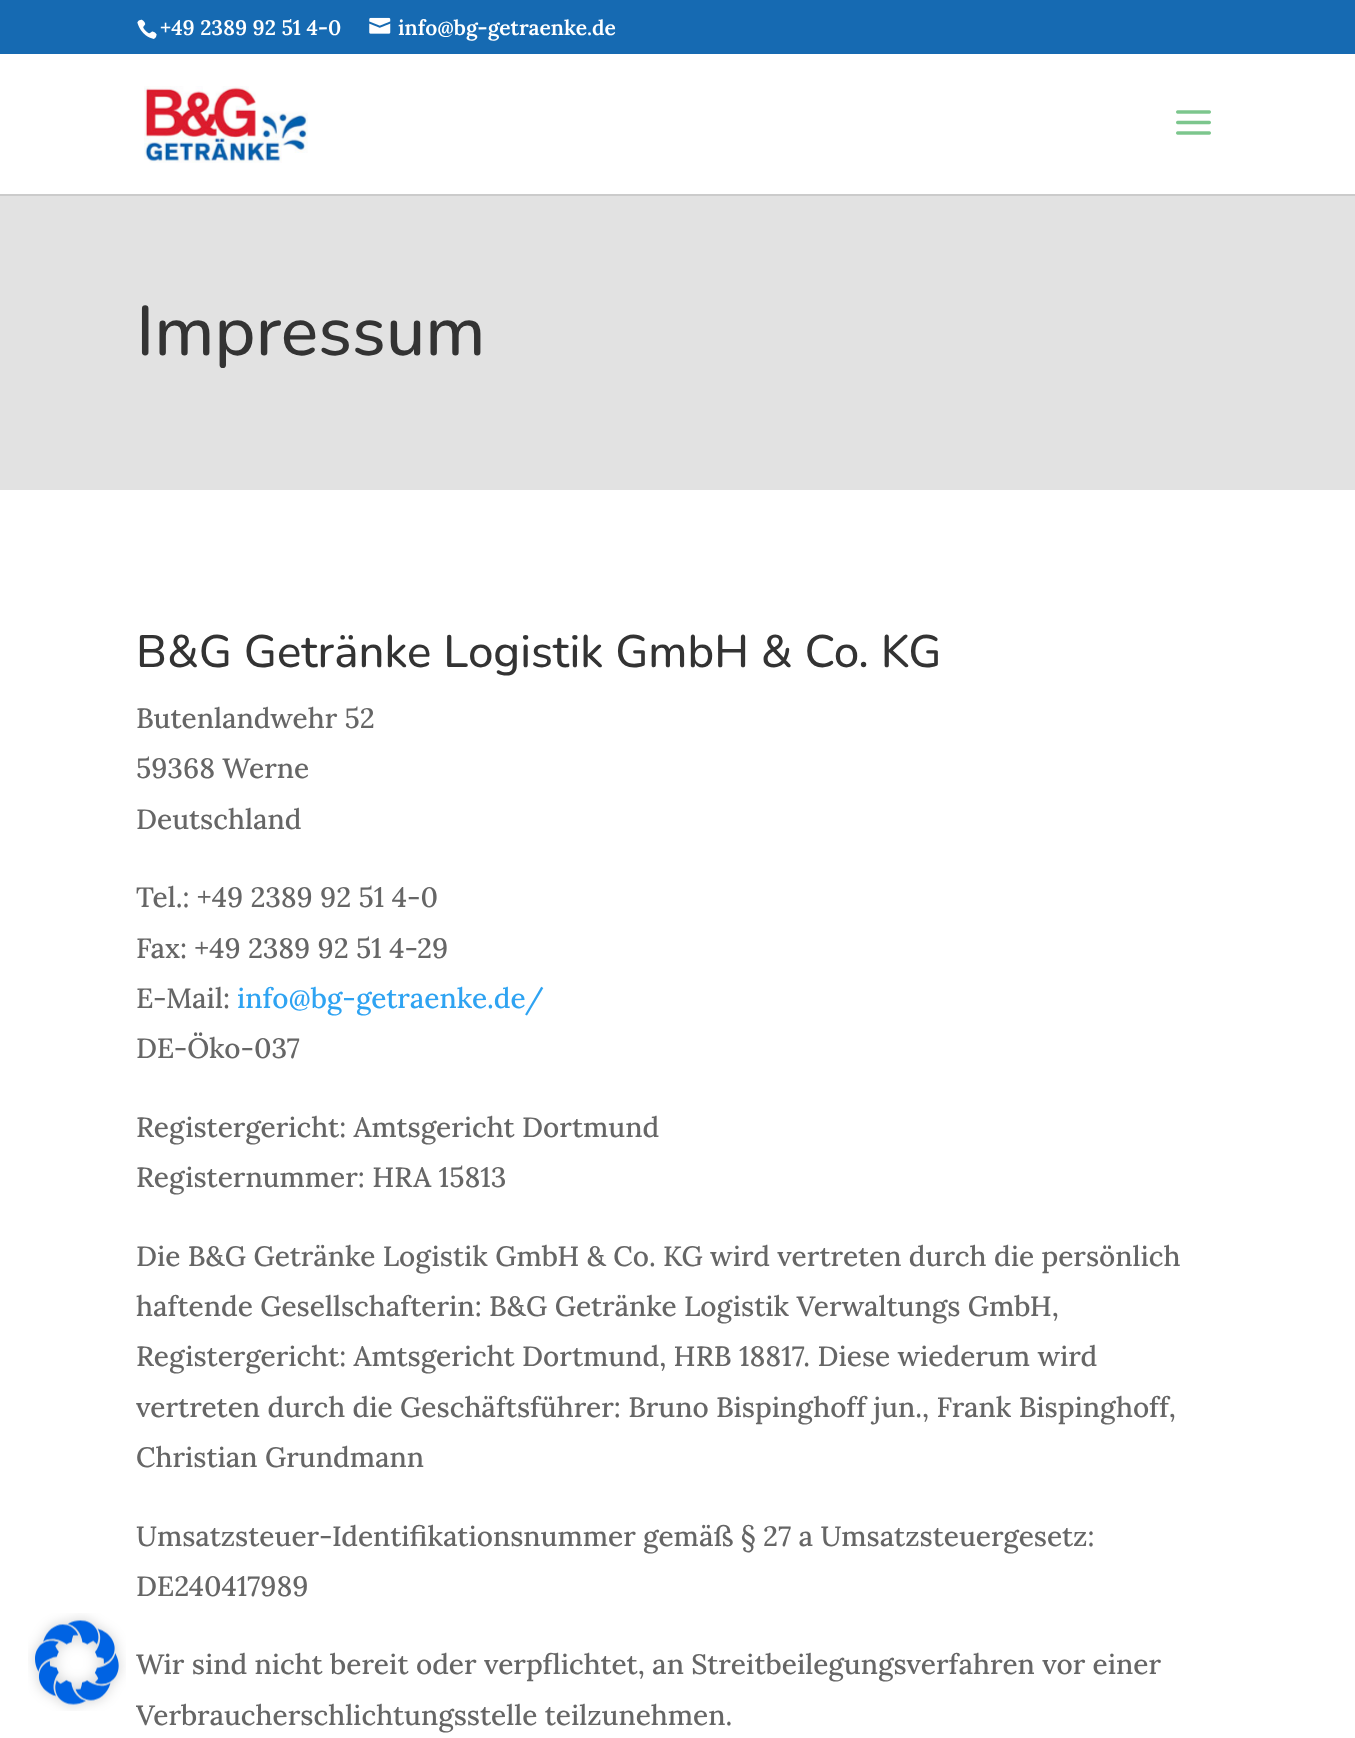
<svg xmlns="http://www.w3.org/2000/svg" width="1355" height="1738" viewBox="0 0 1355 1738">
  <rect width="100%" height="100%" fill="#e2e2e2"/>
  <path d="M0 490h1355v1248H0z" fill="#fff"/>
  <image x="28" y="1613" width="98" height="98" href="img/1.png"/>
  <path d="M0 0h1355v54H0z" fill="#166ab2"/>
  <image x="137" y="19" width="20" height="20" href="img/2.png"/>
  <image x="369" y="17" width="22" height="17" href="img/3.png"/>
  <path d="M0 194h1355v2H0z" fill="#cbcbcb"/>
  <path d="M0 54h1355v140H0z" fill="#fff"/>
  <image x="144" y="86" width="164" height="77" href="img/4.png"/>
  <image x="1176" y="110" width="35" height="25" href="img/5.png"/>
  <g font-family="Lora" font-size="21" font-weight="600" fill="#fff">
    <text x="160" y="35">+49 2389 92 51 4-0</text>
    <text x="398" y="35">info@bg-getraenke.de</text>
  </g>
  <text x="136" y="355" font-family="Nunito" font-size="70" font-weight="500" fill="#333">Impressum</text>
  <text x="136" y="667" font-family="Nunito" font-size="45.5" font-weight="500" fill="#333">B&amp;G Getränke Logistik GmbH &amp; Co. KG</text>
  <g font-family="Lora" font-size="28" font-weight="500" fill="#666">
    <text x="136" y="728">Butenlandwehr 52</text>
    <text x="136" y="778">59368 Werne</text>
    <text x="136" y="829">Deutschland</text>
    <text x="136" y="907">Tel.: +49 2389 92 51 4-0</text>
    <text x="136" y="958">Fax: +49 2389 92 51 4-29</text>
    <text x="136" y="1008">E-Mail:</text>
  </g>
  <text x="237" y="1008" font-family="Lora" font-size="28" font-weight="500" fill="#2ea3f2">info@bg-getraenke.de/</text>
  <g font-family="Lora" font-size="28" font-weight="500" fill="#666">
    <text x="136" y="1058">DE-Öko-037</text>
    <text x="136" y="1137">Registergericht: Amtsgericht Dortmund</text>
    <text x="136" y="1187">Registernummer: HRA 15813</text>
    <text x="136" y="1266">Die B&amp;G Getränke Logistik GmbH &amp; Co. KG wird vertreten durch die persönlich</text>
    <text x="136" y="1316">haftende Gesellschafterin: B&amp;G Getränke Logistik Verwaltungs GmbH,</text>
    <text x="136" y="1366">Registergericht: Amtsgericht Dortmund, HRB 18817. Diese wiederum wird</text>
    <text x="136" y="1417">vertreten durch die Geschäftsführer: Bruno Bispinghoff jun., Frank Bispinghoff,</text>
    <text x="136" y="1467">Christian Grundmann</text>
    <text x="136" y="1546">Umsatzsteuer-Identifikationsnummer gemäß § 27 a Umsatzsteuergesetz:</text>
    <text x="136" y="1596">DE240417989</text>
    <text x="136" y="1674">Wir sind nicht bereit oder verpflichtet, an Streitbeilegungsverfahren vor einer</text>
    <text x="136" y="1725">Verbraucherschlichtungsstelle teilzunehmen.</text>
  </g>
</svg>
